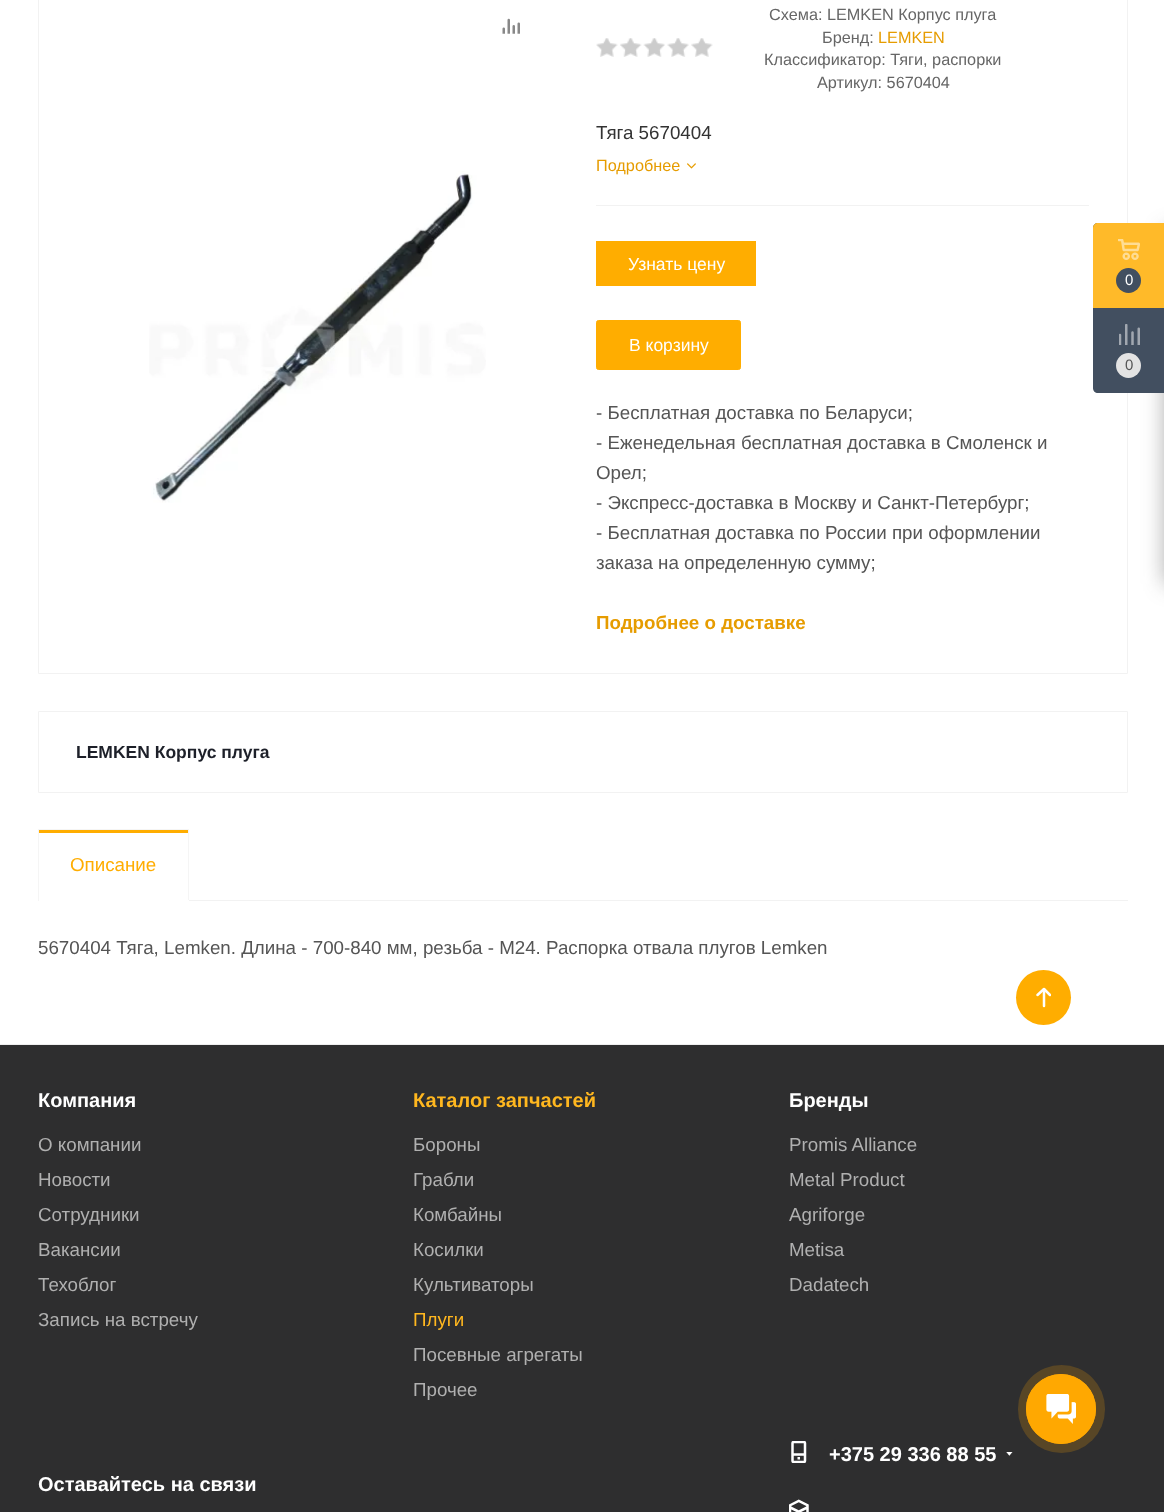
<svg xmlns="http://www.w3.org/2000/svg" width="1164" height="1512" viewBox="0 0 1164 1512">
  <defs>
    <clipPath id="clip1"><path d="M1036 988h15v125H1036z"/></clipPath>
  </defs>
  <rect width="100%" height="100%" fill="#fff"/>
  <path d="M38.5 -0.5h1089v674H38.5z" fill="none" stroke="#f2f2f2"/>
  <image x="502" y="18" width="18" height="16" href="img/1.png"/>
  <image x="149" y="171" width="337" height="332" href="img/2.png"/>
  <path d="M596 205h493v1H596z" fill="#f2f2f2"/>
  <image x="596" y="38" width="22" height="19" href="img/3.png"/>
  <image x="620" y="38" width="22" height="19" href="img/4.png"/>
  <image x="643" y="38" width="22" height="19" href="img/5.png"/>
  <image x="667" y="38" width="22" height="19" href="img/6.png"/>
  <image x="691" y="38" width="22" height="19" href="img/7.png"/>
  <image x="687" y="163" width="9" height="6" href="img/8.png"/>
  <path d="M596 241h160v45H596z" fill="#ffad00"/>
  <rect x="596.5" y="320.5" width="144" height="49" rx="2" fill="#ffad00" stroke="#ffad00"/>
  <path d="M38.5 711.5h1089v81H38.5z" fill="none" stroke="#f2f2f2"/>
  <path d="M189 900h939v1H189z" fill="#f2f2f2"/>
  <path d="M38 829h151v1H38z" fill="#f5f5f5"/>
  <path d="M188 829h1v72H188z" fill="#f5f5f5"/>
  <path d="M188 900h1v1H188z" fill="#fff"/>
  <path d="M38 829h1v72H38z" fill="#f5f5f5"/>
  <path d="M39 830h149v3H39z" fill="#ffad00"/>
  <rect x="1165" y="230" width="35" height="354" rx="2.5" fill="#2c2c2c66" filter="blur(11px)"/>
  <path d="M1098 223H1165V393H1098C1095 393 1093 391 1093 388V228C1093 225 1095 223 1098 223Z" fill="#424f60"/>
  <path d="M1098 223H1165V308H1093V228C1093 225 1095 223 1098 223Z" fill="#ffba29"/>
  <image x="1118" y="239" width="22" height="21" href="img/9.png"/>
  <circle cx="1128.5" cy="280.5" r="12.5" fill="#424f60"/>
  <image x="1119" y="324" width="21" height="21" href="img/10.png"/>
  <circle cx="1128.5" cy="365.5" r="12.5" fill="#e3e3e3"/>
  <path d="M0 1044h1164v1H0z" fill="#eee"/>
  <path d="M0 1045h1164v467H0z" fill="#2e2e2f"/>
  <image x="791" y="1441" width="16" height="22" href="img/11.png"/>
  <image x="1006" y="1452" width="7" height="4" href="img/12.png"/>
  <image x="789" y="1499" width="20" height="13" href="img/13.png"/>
  <circle cx="1043.5" cy="997.5" r="27.5" fill="#ffad00"/>
  <path d="M1044 989V1006" fill="none" stroke="#fff" stroke-width="2.5" stroke-linecap="round" stroke-linejoin="round"/>
  <g clip-path="url(#clip1)">
    <path d="M1037.5 995L1044 989L1050 995" fill="none" stroke="#fff" stroke-width="2.5" stroke-linecap="round" stroke-linejoin="round"/>
  </g>
  <rect x="1018" y="1365" width="87" height="88" rx="43.5" fill="#584626"/>
  <circle cx="1061" cy="1409" r="34.5" fill="none" stroke="#ffa801"/>
  <circle cx="1061" cy="1409" r="35" fill="#ffa801"/>
  <image x="1046" y="1394" width="30" height="30" href="img/14.png"/>
  <g font-family="Liberation Sans" font-size="16.25" fill="#666">
    <text x="769" y="20">Схема: LEMKEN Корпус плуга</text>
    <text x="822" y="43">Бренд:</text>
  </g>
  <text x="878" y="43" font-family="Liberation Sans" font-size="16.25" fill="#e69c00">LEMKEN</text>
  <g font-family="Liberation Sans" font-size="16.25" fill="#666">
    <text x="764" y="65">Классификатор: Тяги, распорки</text>
    <text x="817" y="88">Артикул: 5670404</text>
  </g>
  <text x="596" y="139" font-family="Liberation Sans" font-size="18.75" fill="#333">Тяга 5670404</text>
  <text x="596" y="171" font-family="Liberation Sans" font-size="16.25" fill="#e69c00">Подробнее</text>
  <g font-family="Liberation Sans" font-size="17.5" fill="#fff">
    <text x="628" y="270">Узнать цену</text>
    <text x="629" y="351">В корзину</text>
  </g>
  <g font-family="Liberation Sans" font-size="18.75" fill="#555">
    <text x="596" y="419">- Бесплатная доставка по Беларуси;</text>
    <text x="596" y="449">- Еженедельная бесплатная доставка в Смоленск и</text>
    <text x="596" y="479">Орел;</text>
    <text x="596" y="509">- Экспресс-доставка в Москву и Санкт-Петербург;</text>
    <text x="596" y="539">- Бесплатная доставка по России при оформлении</text>
    <text x="596" y="569">заказа на определенную сумму;</text>
  </g>
  <text x="596" y="629" font-family="Liberation Sans" font-size="18.75" font-weight="bold" fill="#e69c00">Подробнее о доставке</text>
  <text x="76" y="758" font-family="Liberation Sans" font-size="17.5" font-weight="bold" fill="#1d2029">LEMKEN Корпус плуга</text>
  <text x="70" y="871" font-family="Liberation Sans" font-size="18.75" fill="#ffad00">Описание</text>
  <text x="38" y="954" font-family="Liberation Sans" font-size="18.75" fill="#555">5670404 Тяга, Lemken. Длина - 700-840 мм, резьба - М24. Распорка отвала плугов Lemken</text>
  <text x="1125" y="285" font-family="Liberation Sans" font-size="15" fill="#fff">0</text>
  <text x="1125" y="370" font-family="Liberation Sans" font-size="15" fill="#555">0</text>
  <text x="38" y="1107" font-family="Liberation Sans" font-size="20" font-weight="bold" fill="#fff">Компания</text>
  <g font-family="Liberation Sans" font-size="18.75" fill="#b0b0b0">
    <text x="38" y="1151">О компании</text>
    <text x="38" y="1186">Новости</text>
    <text x="38" y="1221">Сотрудники</text>
    <text x="38" y="1256">Вакансии</text>
    <text x="38" y="1291">Техоблог</text>
    <text x="38" y="1326">Запись на встречу</text>
  </g>
  <text x="413" y="1107" font-family="Liberation Sans" font-size="20" font-weight="bold" fill="#ffb71f">Каталог запчастей</text>
  <g font-family="Liberation Sans" font-size="18.75" fill="#b0b0b0">
    <text x="413" y="1151">Бороны</text>
    <text x="413" y="1186">Грабли</text>
    <text x="413" y="1221">Комбайны</text>
    <text x="413" y="1256">Косилки</text>
    <text x="413" y="1291">Культиваторы</text>
  </g>
  <text x="413" y="1326" font-family="Liberation Sans" font-size="18.75" fill="#ffb71f">Плуги</text>
  <g font-family="Liberation Sans" font-size="18.75" fill="#b0b0b0">
    <text x="413" y="1361">Посевные агрегаты</text>
    <text x="413" y="1396">Прочее</text>
  </g>
  <text x="789" y="1107" font-family="Liberation Sans" font-size="20" font-weight="bold" fill="#fff">Бренды</text>
  <g font-family="Liberation Sans" font-size="18.75" fill="#b0b0b0">
    <text x="789" y="1151">Promis Alliance</text>
    <text x="789" y="1186">Metal Product</text>
    <text x="789" y="1221">Agriforge</text>
    <text x="789" y="1256">Metisa</text>
    <text x="789" y="1291">Dadatech</text>
  </g>
  <g font-family="Liberation Sans" font-size="20" font-weight="bold" fill="#fff">
    <text x="829" y="1461">+375 29 336 88 55</text>
    <text x="38" y="1491">Оставайтесь на связи</text>
  </g>
</svg>
